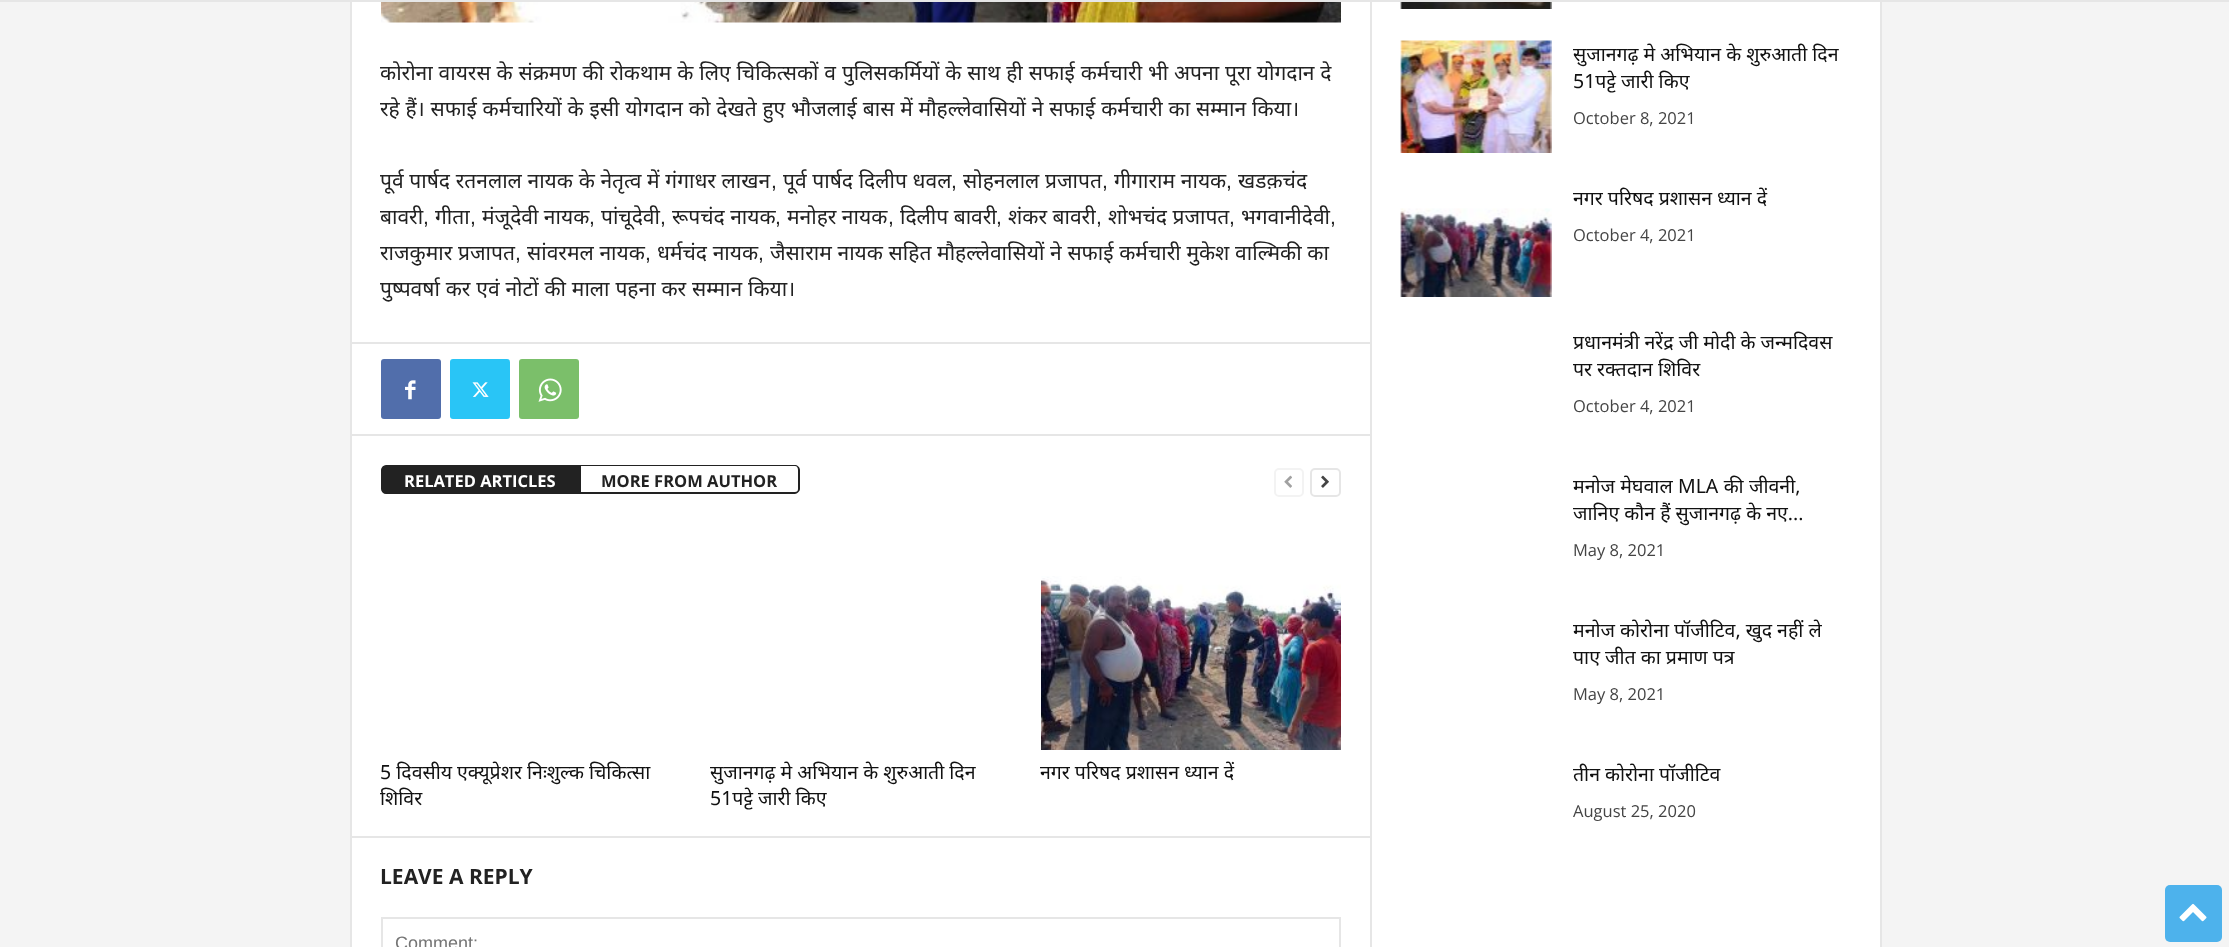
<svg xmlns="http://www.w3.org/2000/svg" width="2229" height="947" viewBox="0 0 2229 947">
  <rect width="100%" height="100%" fill="#f4f4f4"/>
  <path d="M350 0h2v947H350z" fill="#e6e6e6"/>
  <path d="M352 2h1528v945H352z" fill="#fff"/>
  <path d="M1370 0h2v947H1370z" fill="#e6e6e6"/>
  <path d="M1880 0h2v947H1880z" fill="#e6e6e6"/>
  <path d="M0 0h2229v2H0z" fill="#e6e6e6"/>
  <image x="381" y="2" width="960" height="21" href="img/1.png"/>
  <path d="M351 342h1019v2H351z" fill="#e6e6e6"/>
  <rect x="381" y="359" width="60" height="60" rx="3" fill="#516eab"/>
  <image x="405" y="380" width="11" height="20" href="img/2.png"/>
  <rect x="450" y="359" width="60" height="60" rx="3" fill="#29c5f6"/>
  <image x="472" y="382" width="17" height="15" href="img/3.png"/>
  <rect x="519" y="359" width="60" height="60" rx="3" fill="#7bbf6a"/>
  <image x="538" y="378" width="24" height="24" href="img/4.png"/>
  <path d="M351 434h1019v2H351z" fill="#e6e6e6"/>
  <path d="M386 466H580V493H386C384 493 382 491 382 489V470C382 468 384 466 386 466Z" fill="#222" stroke="#222" stroke-width="2"/>
  <path d="M580 465H795C797 465 800 467 800 470V489C800 491 797 494 795 494H580ZM580 466H795C797 466 798 468 798 470V489C798 491 797 492 795 492H580Z" fill="#222" fill-rule="evenodd"/>
  <rect x="1275" y="469" width="28" height="27" rx="4" fill="none" stroke="#f3f3f3" stroke-width="2"/>
  <image x="1284" y="475" width="8" height="13" href="img/5.png"/>
  <rect x="1311" y="469" width="29" height="27" rx="4" fill="none" stroke="#e6e6e6" stroke-width="2"/>
  <image x="1321" y="475" width="8" height="13" href="img/6.png"/>
  <image x="1041" y="576" width="300" height="174" href="img/7.png"/>
  <path d="M351 836h1019v2H351z" fill="#e6e6e6"/>
  <path d="M382 918h958v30H382z" fill="none" stroke="#e6e6e6" stroke-width="2"/>
  <image x="1400" y="2" width="152" height="7" href="img/8.png"/>
  <image x="1400" y="40" width="152" height="113" href="img/9.png"/>
  <image x="1400" y="208" width="152" height="89" href="img/10.png"/>
  <rect x="2165" y="885" width="57" height="57" rx="5" fill="#4db2ec"/>
  <image x="2179" y="903" width="28" height="19" href="img/11.png"/>
  <g font-family="Noto Sans" font-size="21" fill="#222">
    <text x="380" y="80" word-spacing="0.4">कोरोना वायरस के संक्रमण की रोकथाम के लिए चिकित्सकों व पुलिसकर्मियों के साथ ही सफाई कर्मचारी भी अपना पूरा योगदान दे</text>
    <text x="380" y="116" word-spacing="0.4">रहे हैं। सफाई कर्मचारियों के इसी योगदान को देखते हुए भौजलाई बास में मौहल्लेवासियों ने सफाई कर्मचारी का सम्मान किया।</text>
    <text x="380" y="188" word-spacing="0.25">पूर्व पार्षद रतनलाल नायक के नेतृत्व में गंगाधर लाखन</text>
  </g>
  <text x="771" y="188" font-family="Liberation Sans" font-size="21" fill="#222">,</text>
  <text x="783" y="188" word-spacing="0.25" font-family="Noto Sans" font-size="21" fill="#222">पूर्व पार्षद दिलीप धवल</text>
  <text x="951" y="188" font-family="Liberation Sans" font-size="21" fill="#222">,</text>
  <text x="963" y="188" word-spacing="0.25" font-family="Noto Sans" font-size="21" fill="#222">सोहनलाल प्रजापत</text>
  <text x="1102" y="188" font-family="Liberation Sans" font-size="21" fill="#222">,</text>
  <text x="1114" y="188" word-spacing="0.25" font-family="Noto Sans" font-size="21" fill="#222">गीगाराम नायक</text>
  <text x="1226" y="188" font-family="Liberation Sans" font-size="21" fill="#222">,</text>
  <g font-family="Noto Sans" font-size="21" fill="#222">
    <text x="1238" y="188">खडक़चंद</text>
    <text x="380" y="224">बावरी</text>
  </g>
  <text x="423" y="224" font-family="Liberation Sans" font-size="21" fill="#222">,</text>
  <text x="435" y="224" font-family="Noto Sans" font-size="21" fill="#222">गीता</text>
  <text x="470" y="224" font-family="Liberation Sans" font-size="21" fill="#222">,</text>
  <text x="482" y="224" font-family="Noto Sans" font-size="21" fill="#222">मंजूदेवी नायक</text>
  <text x="589" y="224" font-family="Liberation Sans" font-size="21" fill="#222">,</text>
  <text x="601" y="224" font-family="Noto Sans" font-size="21" fill="#222">पांचूदेवी</text>
  <text x="660" y="224" font-family="Liberation Sans" font-size="21" fill="#222">,</text>
  <text x="672" y="224" font-family="Noto Sans" font-size="21" fill="#222">रूपचंद नायक</text>
  <text x="775" y="224" font-family="Liberation Sans" font-size="21" fill="#222">,</text>
  <text x="787" y="224" font-family="Noto Sans" font-size="21" fill="#222">मनोहर नायक</text>
  <text x="888" y="224" font-family="Liberation Sans" font-size="21" fill="#222">,</text>
  <text x="900" y="224" font-family="Noto Sans" font-size="21" fill="#222">दिलीप बावरी</text>
  <text x="996" y="224" font-family="Liberation Sans" font-size="21" fill="#222">,</text>
  <text x="1008" y="224" font-family="Noto Sans" font-size="21" fill="#222">शंकर बावरी</text>
  <text x="1096" y="224" font-family="Liberation Sans" font-size="21" fill="#222">,</text>
  <text x="1108" y="224" font-family="Noto Sans" font-size="21" fill="#222">शोभचंद प्रजापत</text>
  <text x="1229" y="224" font-family="Liberation Sans" font-size="21" fill="#222">,</text>
  <text x="1241" y="224" font-family="Noto Sans" font-size="21" fill="#222">भगवानीदेवी</text>
  <text x="1330" y="224" font-family="Liberation Sans" font-size="21" fill="#222">,</text>
  <text x="380" y="260" word-spacing="0.25" font-family="Noto Sans" font-size="21" fill="#222">राजकुमार प्रजापत</text>
  <text x="515" y="260" font-family="Liberation Sans" font-size="21" fill="#222">,</text>
  <text x="527" y="260" word-spacing="0.25" font-family="Noto Sans" font-size="21" fill="#222">सांवरमल नायक</text>
  <text x="645" y="260" font-family="Liberation Sans" font-size="21" fill="#222">,</text>
  <text x="657" y="260" word-spacing="0.25" font-family="Noto Sans" font-size="21" fill="#222">धर्मचंद नायक</text>
  <text x="758" y="260" font-family="Liberation Sans" font-size="21" fill="#222">,</text>
  <g font-family="Noto Sans" font-size="21" fill="#222">
    <text x="770" y="260" word-spacing="0.25">जैसाराम नायक सहित मौहल्लेवासियों ने सफाई कर्मचारी मुकेश वाल्मिकी का</text>
    <text x="380" y="296" word-spacing="0.4">पुष्पवर्षा कर एवं नोटों की माला पहना कर सम्मान किया।</text>
  </g>
  <text x="404" y="487" font-family="Open Sans" font-size="16.5" font-weight="bold" fill="#fff">RELATED ARTICLES</text>
  <text x="601" y="487" font-family="Open Sans" font-size="16.5" font-weight="bold" fill="#222">MORE FROM AUTHOR</text>
  <g font-family="Noto Sans" font-size="19.5" fill="#111">
    <text x="380" y="779">5 दिवसीय एक्यूप्रेशर निःशुल्क चिकित्सा</text>
    <text x="380" y="805">शिविर</text>
    <text x="710" y="779">सुजानगढ़ मे अभियान के शुरुआती दिन</text>
    <text x="710" y="805">51पट्टे जारी किए</text>
    <text x="1040" y="779">नगर परिषद प्रशासन ध्यान दें</text>
  </g>
  <text x="380" y="884" font-family="Open Sans" font-size="21" font-weight="bold" fill="#222">LEAVE A REPLY</text>
  <text x="395" y="949" font-family="Liberation Sans" font-size="18" fill="#757575">Comment:</text>
  <g font-family="Noto Sans" font-size="19.5" fill="#111">
    <text x="1573" y="61">सुजानगढ़ मे अभियान के शुरुआती दिन</text>
    <text x="1573" y="88">51पट्टे जारी किए</text>
  </g>
  <text x="1573" y="124" font-family="Open Sans" font-size="16.5" fill="#444">October 8, 2021</text>
  <text x="1573" y="205" font-family="Noto Sans" font-size="19.5" fill="#111">नगर परिषद प्रशासन ध्यान दें</text>
  <text x="1573" y="241" font-family="Open Sans" font-size="16.5" fill="#444">October 4, 2021</text>
  <g font-family="Noto Sans" font-size="19.5" fill="#111">
    <text x="1573" y="349">प्रधानमंत्री नरेंद्र जी मोदी के जन्मदिवस</text>
    <text x="1573" y="376">पर रक्तदान शिविर</text>
  </g>
  <text x="1573" y="412" font-family="Open Sans" font-size="16.5" fill="#444">October 4, 2021</text>
  <g font-family="Noto Sans" font-size="19.5" fill="#111">
    <text x="1573" y="493" word-spacing="0.25">मनोज मेघवाल MLA की जीवनी,</text>
    <text x="1573" y="520">जानिए कौन हैं सुजानगढ़ के नए...</text>
  </g>
  <text x="1573" y="556" font-family="Open Sans" font-size="16.5" fill="#444">May 8, 2021</text>
  <g font-family="Noto Sans" font-size="19.5" fill="#111">
    <text x="1573" y="637">मनोज कोरोना पॉजीटिव, खुद नहीं ले</text>
    <text x="1573" y="664">पाए जीत का प्रमाण पत्र</text>
  </g>
  <text x="1573" y="700" font-family="Open Sans" font-size="16.5" fill="#444">May 8, 2021</text>
  <text x="1573" y="781" font-family="Noto Sans" font-size="19.5" fill="#111">तीन कोरोना पॉजीटिव</text>
  <text x="1573" y="817" font-family="Open Sans" font-size="16.5" fill="#444">August 25, 2020</text>
</svg>
